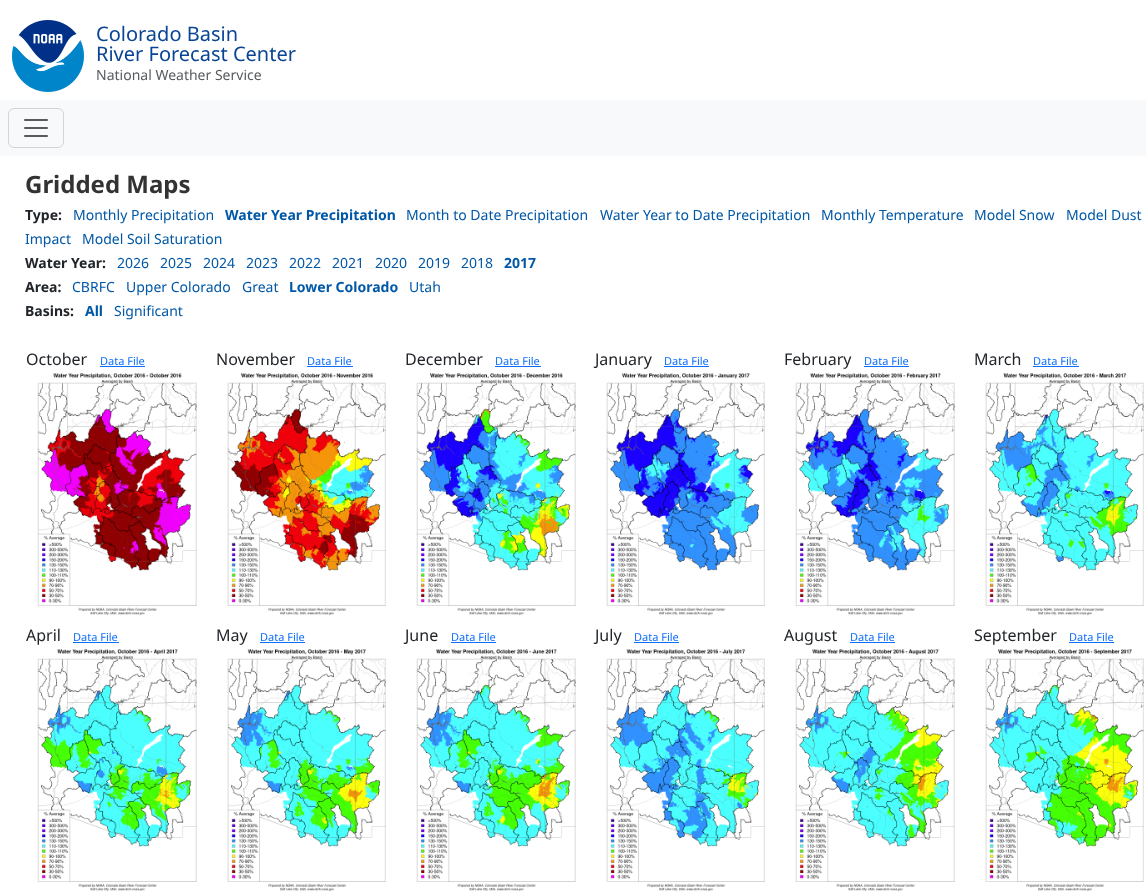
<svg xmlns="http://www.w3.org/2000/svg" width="1146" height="891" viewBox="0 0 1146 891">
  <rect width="100%" height="100%" fill="#fff"/>
  <image x="12" y="20" width="72" height="72" href="img/1.png"/>
  <path d="M0 100h1146v56H0z" fill="#f8f9fa"/>
  <rect x="8.5" y="108.5" width="55" height="39" rx="5.5" fill="none" stroke="#d3d4d5"/>
  <image x="24" y="119" width="24" height="18" href="img/2.png"/>
  <path d="M100 366h45v1H100z" fill="#0d6efd"/>
  <image x="37" y="373" width="160" height="243" href="img/3.png"/>
  <path d="M307 366h46v1H307z" fill="#0d6efd"/>
  <image x="227" y="373" width="159" height="243" href="img/4.png"/>
  <path d="M495 366h46v1H495z" fill="#0d6efd"/>
  <image x="416" y="373" width="160" height="243" href="img/5.png"/>
  <path d="M664 366h45v1H664z" fill="#0d6efd"/>
  <image x="606" y="373" width="159" height="243" href="img/6.png"/>
  <path d="M864 366h45v1H864z" fill="#0d6efd"/>
  <image x="795" y="373" width="160" height="243" href="img/7.png"/>
  <path d="M1033 366h46v1H1033z" fill="#0d6efd"/>
  <image x="985" y="373" width="159" height="243" href="img/8.png"/>
  <path d="M73 642h46v1H73z" fill="#0d6efd"/>
  <image x="37" y="649" width="160" height="242" href="img/9.png"/>
  <path d="M260 642h45v1H260z" fill="#0d6efd"/>
  <image x="227" y="649" width="159" height="242" href="img/10.png"/>
  <path d="M451 642h45v1H451z" fill="#0d6efd"/>
  <image x="416" y="649" width="160" height="242" href="img/11.png"/>
  <path d="M634 642h45v1H634z" fill="#0d6efd"/>
  <image x="606" y="649" width="159" height="242" href="img/12.png"/>
  <path d="M850 642h45v1H850z" fill="#0d6efd"/>
  <image x="795" y="649" width="160" height="242" href="img/13.png"/>
  <path d="M1069 642h45v1H1069z" fill="#0d6efd"/>
  <image x="985" y="649" width="159" height="242" href="img/14.png"/>
  <g font-family="Noto Sans" font-size="20" fill="#0a4595">
    <text x="96" y="41">Colorado Basin</text>
    <text x="96" y="61">River Forecast Center</text>
  </g>
  <text x="96" y="80" font-family="Noto Sans" font-size="14" fill="#595c5f">National Weather Service</text>
  <text x="25" y="193" font-family="Noto Sans" font-size="24" font-weight="bold" fill="#333">Gridded Maps</text>
  <text x="25" y="220" font-family="Noto Sans" font-size="14" font-weight="bold" fill="#212529">Type:</text>
  <text x="73" y="220" font-family="Noto Sans" font-size="14" fill="#0058a6">Monthly Precipitation</text>
  <text x="225" y="220" font-family="Noto Sans" font-size="14" font-weight="bold" fill="#0058a6">Water Year Precipitation</text>
  <g font-family="Noto Sans" font-size="14" fill="#0058a6">
    <text x="406" y="220">Month to Date Precipitation</text>
    <text x="600" y="220">Water Year to Date Precipitation</text>
    <text x="821" y="220">Monthly Temperature</text>
    <text x="974" y="220">Model Snow</text>
    <text x="1066" y="220">Model Dust</text>
    <text x="25" y="244">Impact</text>
    <text x="82" y="244">Model Soil Saturation</text>
  </g>
  <text x="25" y="268" font-family="Noto Sans" font-size="14" font-weight="bold" fill="#212529">Water Year:</text>
  <g font-family="Noto Sans" font-size="14" fill="#0058a6">
    <text x="117" y="268">2026</text>
    <text x="160" y="268">2025</text>
    <text x="203" y="268">2024</text>
    <text x="246" y="268">2023</text>
    <text x="289" y="268">2022</text>
    <text x="332" y="268">2021</text>
    <text x="375" y="268">2020</text>
    <text x="418" y="268">2019</text>
    <text x="461" y="268">2018</text>
  </g>
  <text x="504" y="268" font-family="Noto Sans" font-size="14" font-weight="bold" fill="#0058a6">2017</text>
  <text x="25" y="292" font-family="Noto Sans" font-size="14" font-weight="bold" fill="#212529">Area:</text>
  <g font-family="Noto Sans" font-size="14" fill="#0058a6">
    <text x="72" y="292">CBRFC</text>
    <text x="126" y="292">Upper Colorado</text>
    <text x="242" y="292">Great</text>
  </g>
  <text x="289" y="292" font-family="Noto Sans" font-size="14" font-weight="bold" fill="#0058a6">Lower Colorado</text>
  <text x="409" y="292" font-family="Noto Sans" font-size="14" fill="#0058a6">Utah</text>
  <text x="25" y="316" font-family="Noto Sans" font-size="14" font-weight="bold" fill="#212529">Basins:</text>
  <text x="85" y="316" font-family="Noto Sans" font-size="14" font-weight="bold" fill="#0058a6">All</text>
  <text x="114" y="316" font-family="Noto Sans" font-size="14" fill="#0058a6">Significant</text>
  <text x="26" y="365" font-family="Noto Sans" font-size="16" fill="#212529">October</text>
  <text x="100" y="365" font-family="Noto Sans" font-size="11" fill="#0d6efd">Data File</text>
  <text x="216" y="365" font-family="Noto Sans" font-size="16" fill="#212529">November</text>
  <text x="307" y="365" font-family="Noto Sans" font-size="11" fill="#0d6efd">Data File</text>
  <text x="405" y="365" font-family="Noto Sans" font-size="16" fill="#212529">December</text>
  <text x="495" y="365" font-family="Noto Sans" font-size="11" fill="#0d6efd">Data File</text>
  <text x="595" y="365" font-family="Noto Sans" font-size="16" fill="#212529">January</text>
  <text x="664" y="365" font-family="Noto Sans" font-size="11" fill="#0d6efd">Data File</text>
  <text x="784" y="365" font-family="Noto Sans" font-size="16" fill="#212529">February</text>
  <text x="864" y="365" font-family="Noto Sans" font-size="11" fill="#0d6efd">Data File</text>
  <text x="974" y="365" font-family="Noto Sans" font-size="16" fill="#212529">March</text>
  <text x="1033" y="365" font-family="Noto Sans" font-size="11" fill="#0d6efd">Data File</text>
  <text x="26" y="641" font-family="Noto Sans" font-size="16" fill="#212529">April</text>
  <text x="73" y="641" font-family="Noto Sans" font-size="11" fill="#0d6efd">Data File</text>
  <text x="216" y="641" font-family="Noto Sans" font-size="16" fill="#212529">May</text>
  <text x="260" y="641" font-family="Noto Sans" font-size="11" fill="#0d6efd">Data File</text>
  <text x="405" y="641" font-family="Noto Sans" font-size="16" fill="#212529">June</text>
  <text x="451" y="641" font-family="Noto Sans" font-size="11" fill="#0d6efd">Data File</text>
  <text x="595" y="641" font-family="Noto Sans" font-size="16" fill="#212529">July</text>
  <text x="634" y="641" font-family="Noto Sans" font-size="11" fill="#0d6efd">Data File</text>
  <text x="784" y="641" font-family="Noto Sans" font-size="16" fill="#212529">August</text>
  <text x="850" y="641" font-family="Noto Sans" font-size="11" fill="#0d6efd">Data File</text>
  <text x="974" y="641" font-family="Noto Sans" font-size="16" fill="#212529">September</text>
  <text x="1069" y="641" font-family="Noto Sans" font-size="11" fill="#0d6efd">Data File</text>
</svg>
